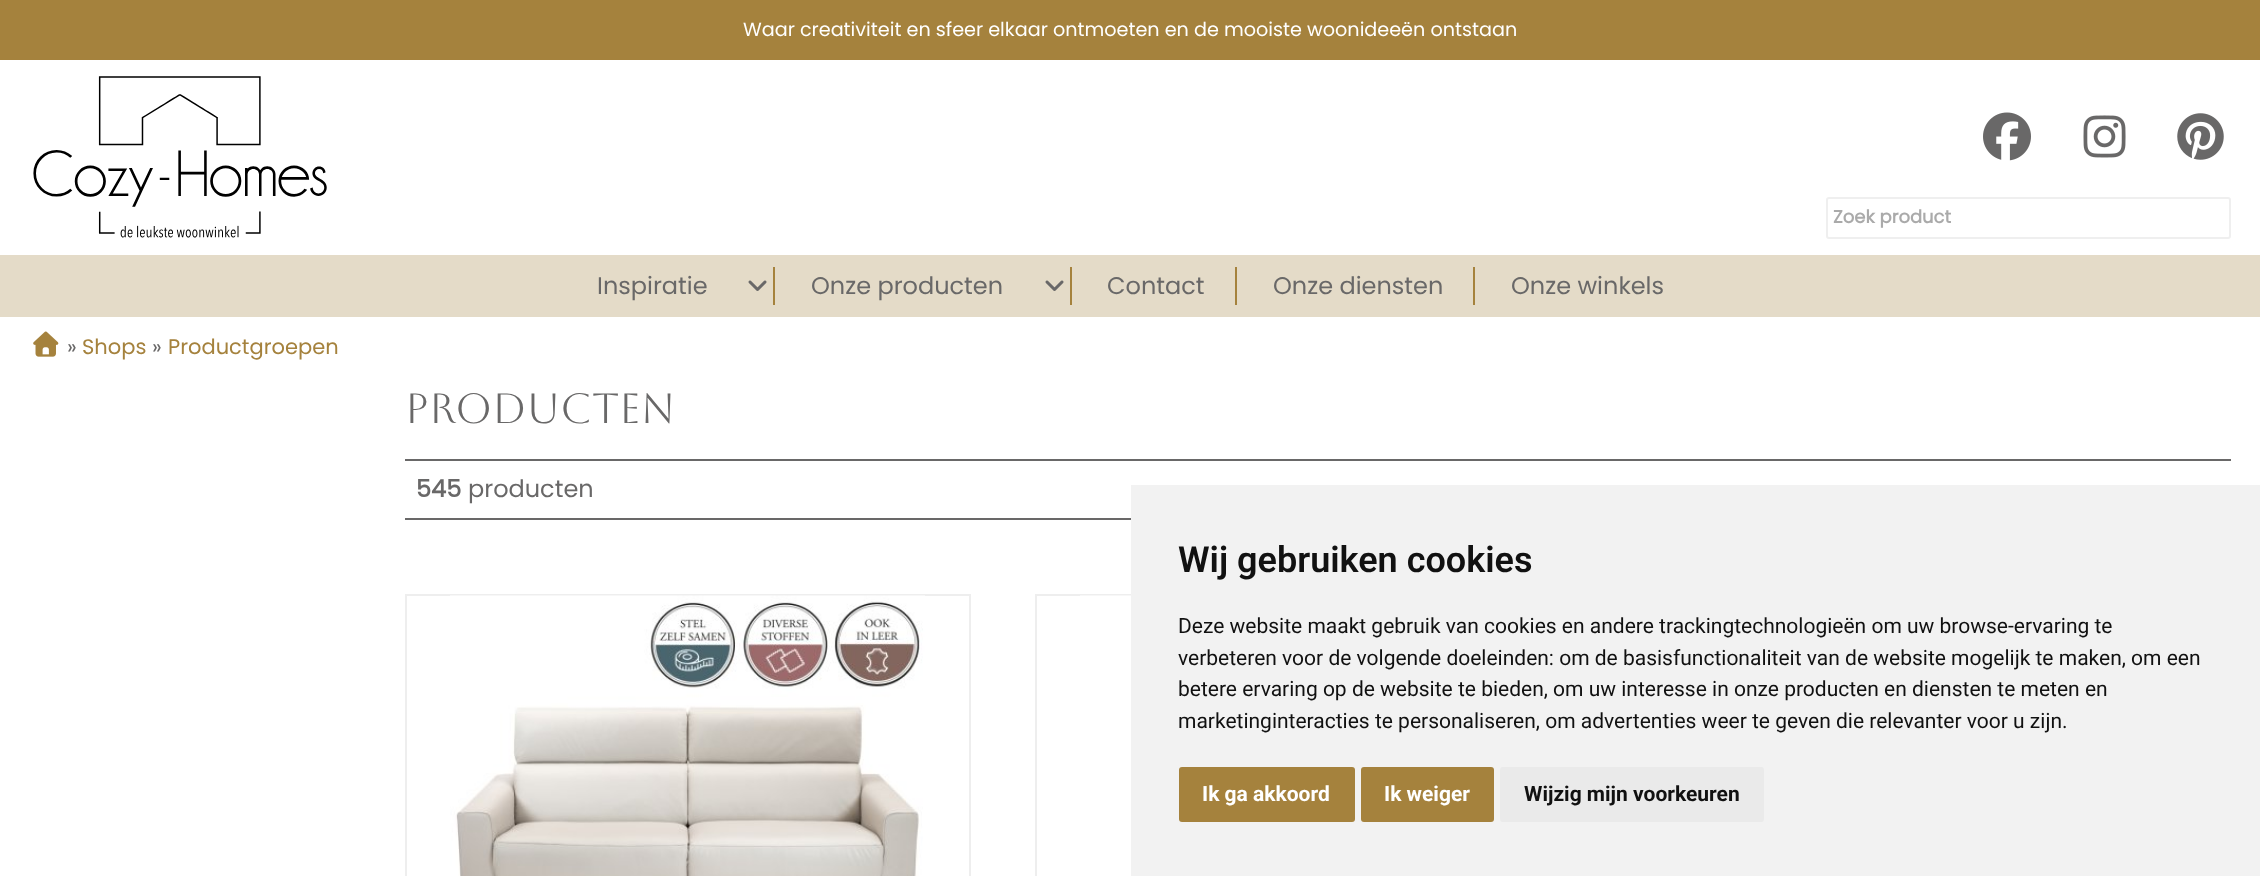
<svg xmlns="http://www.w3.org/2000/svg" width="2260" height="876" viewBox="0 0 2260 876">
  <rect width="100%" height="100%" fill="#fff"/>
  <path d="M0 0h2260v60H0z" fill="#a5823d"/>
  <image x="33" y="76" width="294" height="162" href="img/1.png"/>
  <image x="1983" y="112" width="48" height="49" href="img/2.png"/>
  <image x="2083" y="115" width="43" height="43" href="img/3.png"/>
  <image x="2177" y="113" width="47" height="47" href="img/4.png"/>
  <rect x="1827" y="198" width="403" height="40" rx="2" fill="none" stroke="#efefef" stroke-width="2"/>
  <path d="M0 255h2260v62H0z" fill="#e4dbc8"/>
  <path d="M773 267h2v38H773z" fill="#a5823d"/>
  <image x="748" y="280" width="19" height="11" href="img/5.png"/>
  <path d="M1070 267h2v38H1070z" fill="#a5823d"/>
  <image x="1045" y="280" width="19" height="11" href="img/5.png"/>
  <path d="M1235 267h2v38H1235z" fill="#a5823d"/>
  <path d="M1473 267h2v38H1473z" fill="#a5823d"/>
  <image x="33" y="331" width="26" height="26" href="img/6.png"/>
  <path d="M405 459h1826v2H405z" fill="#696868"/>
  <path d="M405 518h726v2H405z" fill="#696868"/>
  <path d="M406 595h564v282H406z" fill="none" stroke="#eee" stroke-width="2"/>
  <image x="450" y="595" width="475" height="281" href="img/7.png"/>
  <path d="M1036 595h564v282H1036z" fill="none" stroke="#eee" stroke-width="2"/>
  <image x="1080" y="595" width="51" height="281" href="img/8.png"/>
  <path d="M1131 485h1129v391H1131z" fill="#f2f2f2"/>
  <rect x="1179" y="767" width="176" height="55" rx="3" fill="#a5823d"/>
  <rect x="1361" y="767" width="133" height="55" rx="3" fill="#a5823d"/>
  <rect x="1500" y="767" width="264" height="55" rx="3" fill="#eaeaea"/>
  <text x="743" y="36" font-family="Poppins" font-size="19.2" fill="#fff">Waar creativiteit en sfeer elkaar ontmoeten en de mooiste woonideeën ontstaan</text>
  <text x="1833" y="223" font-family="Poppins" font-size="18" font-weight="bold" fill="#aaa">Zoek product</text>
  <g font-family="Poppins" font-size="24" fill="#696868">
    <text x="597" y="294">Inspiratie</text>
    <text x="811" y="294">Onze producten</text>
    <text x="1107" y="294">Contact</text>
    <text x="1273" y="294">Onze diensten</text>
    <text x="1511" y="294">Onze winkels</text>
  </g>
  <text x="67" y="354" font-family="Poppins" font-size="21" fill="#696868">»</text>
  <text x="82" y="354" font-family="Poppins" font-size="21" fill="#a5823d">Shops</text>
  <text x="152" y="354" font-family="Poppins" font-size="21" fill="#696868">»</text>
  <text x="168" y="354" font-family="Poppins" font-size="21" fill="#a5823d">Productgroepen</text>
  <text x="405" y="423" font-family="Aboreto" font-size="42" fill="#696868">Producten</text>
  <text x="416" y="497" font-family="Poppins" font-size="24" font-weight="bold" fill="#696868">545</text>
  <text x="468" y="497" font-family="Poppins" font-size="24" fill="#696868">producten</text>
  <text x="1178" y="572" font-family="Roboto" font-size="36" font-weight="600" fill="#111">Wij gebruiken cookies</text>
  <g font-family="Roboto" font-size="21" fill="#111">
    <text x="1178" y="633">Deze website maakt gebruik van cookies en andere trackingtechnologieën om uw browse-ervaring te</text>
    <text x="1178" y="665">verbeteren voor de volgende doeleinden: om de basisfunctionaliteit van de website mogelijk te maken, om een</text>
    <text x="1178" y="696">betere ervaring op de website te bieden, om uw interesse in onze producten en diensten te meten en</text>
    <text x="1178" y="728">marketinginteracties te personaliseren, om advertenties weer te geven die relevanter voor u zijn.</text>
  </g>
  <g font-family="Roboto" font-size="21" font-weight="bold" fill="#fff">
    <text x="1202" y="801">Ik ga akkoord</text>
    <text x="1384" y="801">Ik weiger</text>
  </g>
  <text x="1524" y="801" font-family="Roboto" font-size="21" font-weight="bold" fill="#111">Wijzig mijn voorkeuren</text>
</svg>
